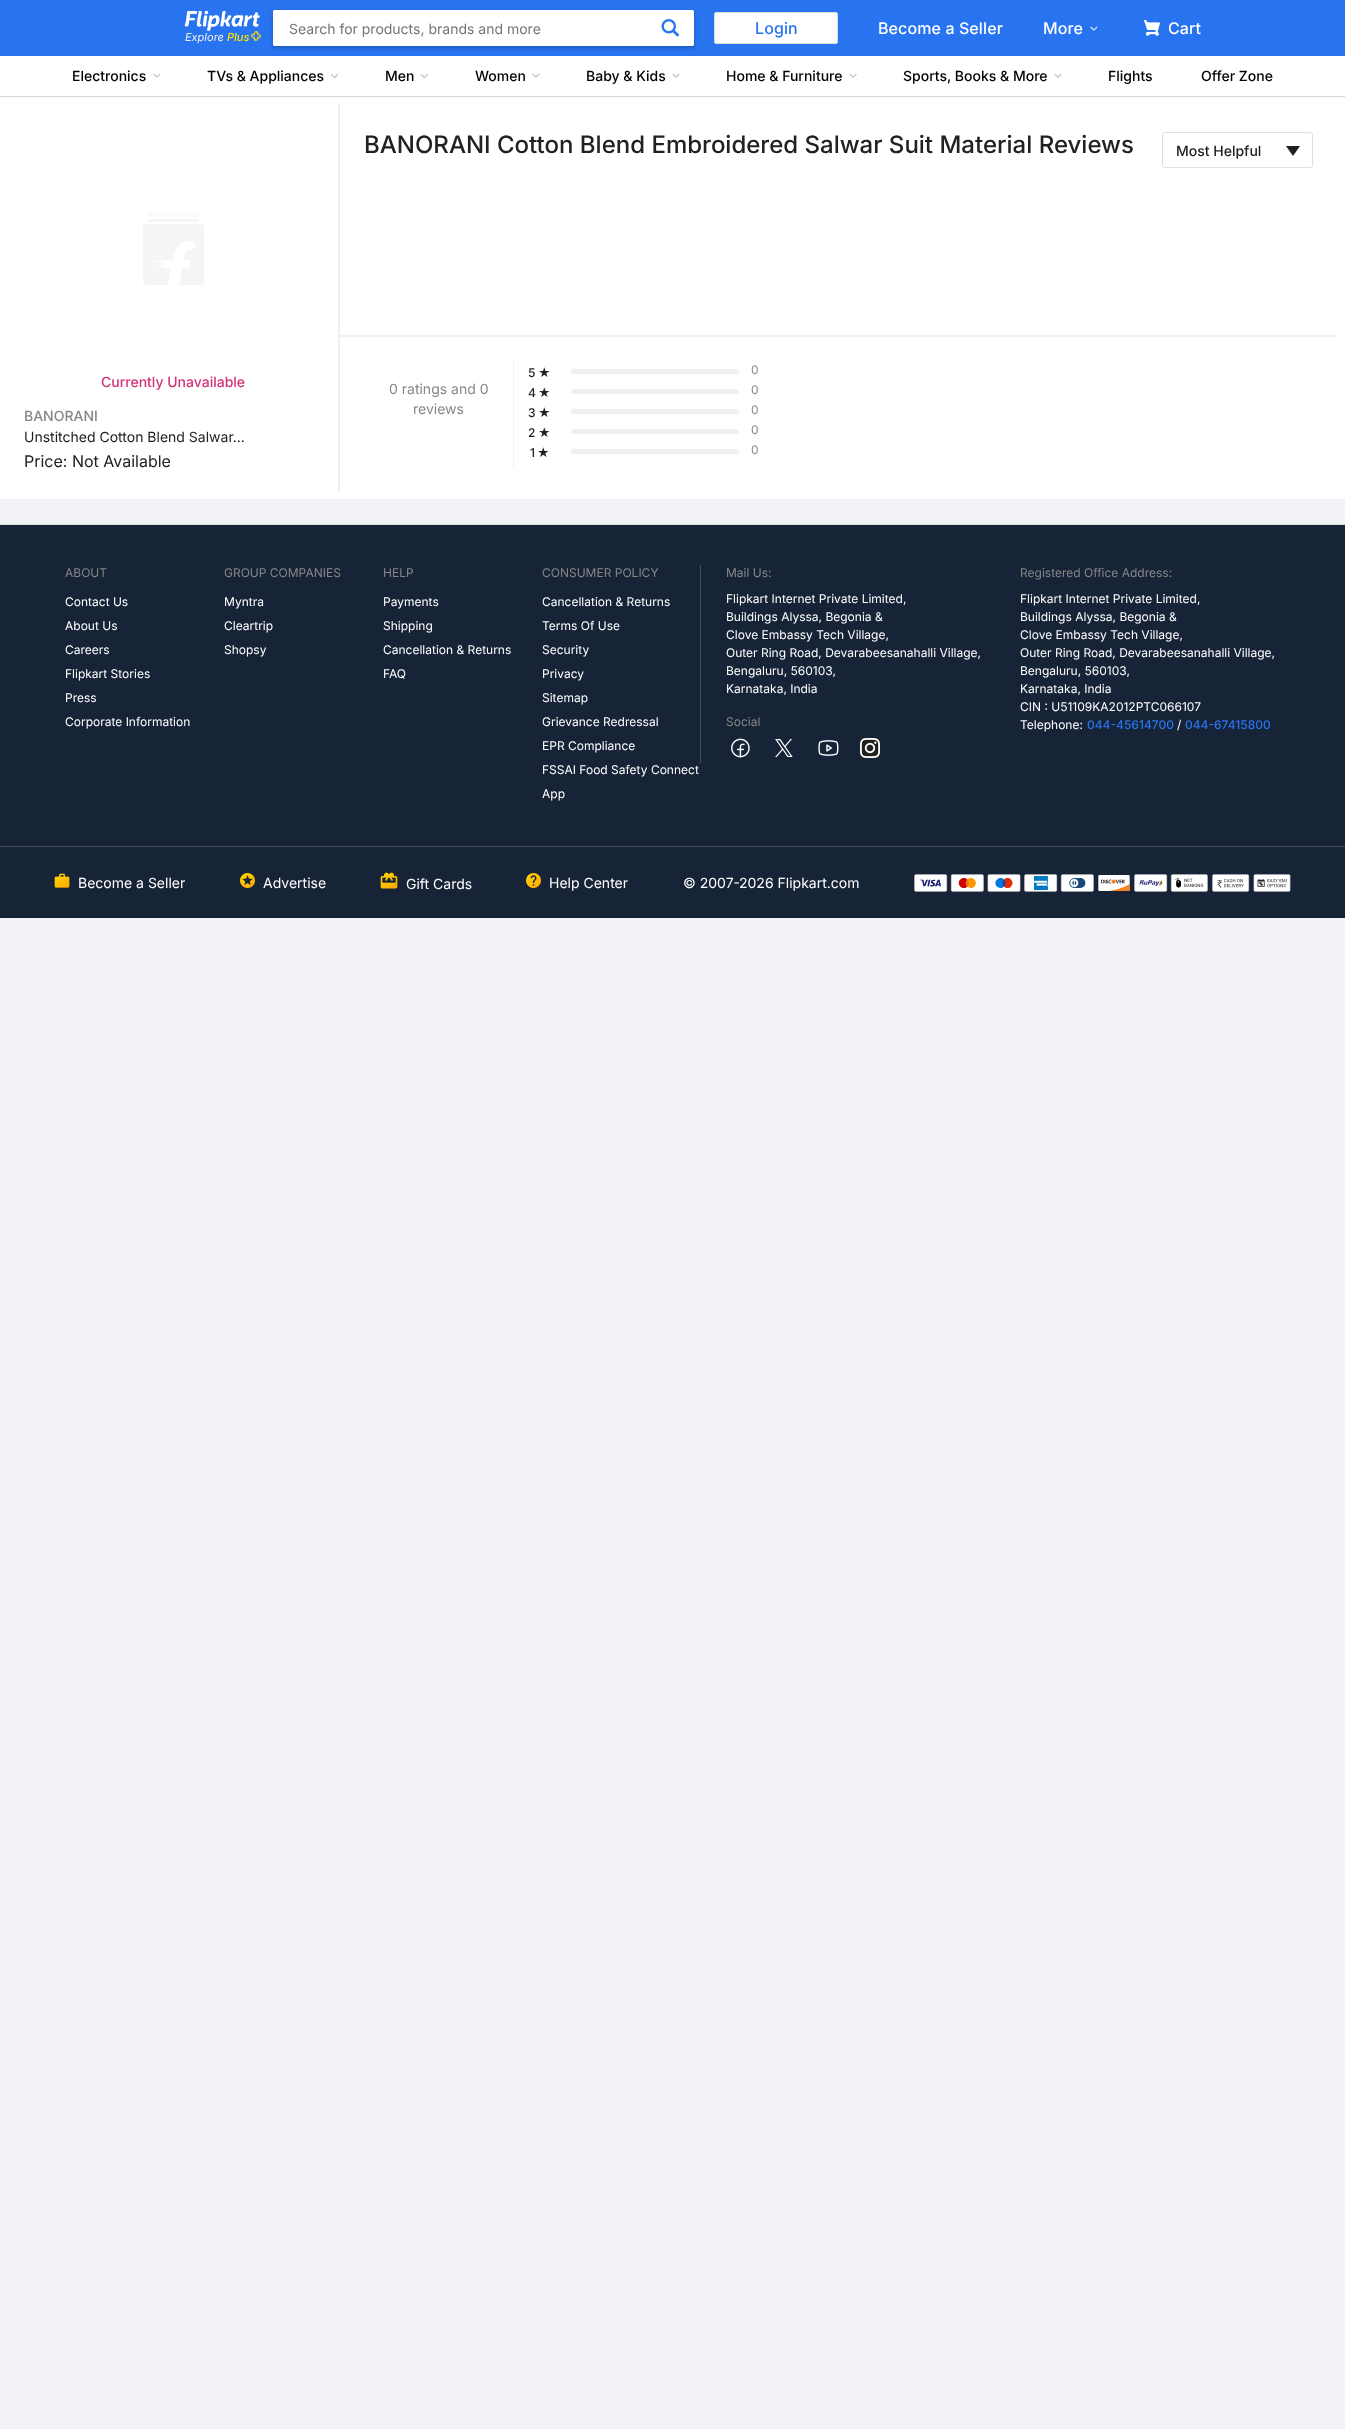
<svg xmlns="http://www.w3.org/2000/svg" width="1345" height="2429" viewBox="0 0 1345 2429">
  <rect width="100%" height="100%" fill="#f1f3f6"/>
  <path d="M0 96h1345v403H0z" fill="#fff"/>
  <path d="M0 57h1345v40H0z" fill="#00000029" filter="blur(0.5px)"/>
  <path d="M0 0h1345v56H0z" fill="#2874f0"/>
  <path d="M273 12h421v36H273z" fill="#0000003b" filter="blur(2px)"/>
  <rect x="273" y="10" width="421" height="36" rx="2" fill="#fff"/>
  <path d="M275 10H652V46H275C274 46 273 45 273 44V12C273 11 274 10 275 10Z" fill="#fff"/>
  <rect x="652.5" y="10.5" width="41" height="35" rx="1.5" fill="#fff" stroke="#fff"/>
  <image x="661" y="19" width="19" height="18" href="img/1.png"/>
  <rect x="714.5" y="12.5" width="123" height="31" rx="1.5" fill="#fff" stroke="#dbdbdb"/>
  <image x="1090" y="26" width="8" height="5" href="img/2.png"/>
  <image x="1144" y="20" width="16" height="16" href="img/3.png"/>
  <image x="184" y="10" width="76" height="21" href="img/4.png"/>
  <image x="251" y="30" width="10" height="11" href="img/5.png"/>
  <path d="M0 56h1345v40H0z" fill="#fff"/>
  <image x="153" y="73" width="8" height="5" href="img/6.png"/>
  <image x="331" y="74" width="7" height="5" href="img/7.png"/>
  <image x="420" y="74" width="8" height="5" href="img/8.png"/>
  <image x="532" y="73" width="8" height="5" href="img/9.png"/>
  <image x="672" y="73" width="8" height="5" href="img/10.png"/>
  <image x="849" y="73" width="8" height="5" href="img/11.png"/>
  <image x="1054" y="73" width="8" height="5" href="img/10.png"/>
  <path d="M338 104h2v387H338z" fill="#f0f0f0"/>
  <image x="143" y="213" width="61" height="72" href="img/12.png"/>
  <path d="M340 335h997v2H340z" fill="#f0f0f0"/>
  <rect x="1162.5" y="132.5" width="150" height="35" rx="2.5" fill="none" stroke="#e0e0e0"/>
  <path d="M1286 146H1300L1293 156Z" fill="#212121"/>
  <path d="M513 361h1v106H513z" fill="#f0f0f0"/>
  <rect x="571" y="369" width="168" height="5" rx="2.5" fill="#f0f0f0"/>
  <rect x="571" y="389" width="168" height="5" rx="2.5" fill="#f0f0f0"/>
  <rect x="571" y="409" width="168" height="5" rx="2.5" fill="#f0f0f0"/>
  <rect x="571" y="429" width="168" height="5" rx="2.5" fill="#f0f0f0"/>
  <rect x="571" y="449" width="168" height="5" rx="2.5" fill="#f0f0f0"/>
  <path d="M0 525h1345v393H0z" fill="#172337"/>
  <path d="M0 524h1345v1H0z" fill="#ddd"/>
  <path d="M700 565h1v198H700z" fill="#454d5e"/>
  <image x="731" y="738" width="19" height="20" href="img/13.png"/>
  <image x="775" y="739" width="18" height="18" href="img/14.png"/>
  <image x="818" y="740" width="21" height="16" href="img/15.png"/>
  <image x="860" y="738" width="20" height="20" href="img/16.png"/>
  <path d="M0 846h1345v1H0z" fill="#454d5e"/>
  <image x="54" y="873" width="16" height="15" href="img/17.png"/>
  <image x="240" y="873" width="15" height="15" href="img/18.png"/>
  <image x="380" y="872" width="18" height="17" href="img/19.png"/>
  <image x="526" y="873" width="15" height="15" href="img/20.png"/>
  <image x="914" y="874" width="377" height="18" href="img/21.png"/>
  <text x="289" y="34" font-family="Inter" font-size="14" fill="#757575">Search for products, brands and more</text>
  <text x="755" y="34" font-family="Inter" font-size="16" font-weight="500" letter-spacing="0.1" fill="#2874f0">Login</text>
  <g font-family="Inter" font-size="16" font-weight="500" letter-spacing="0.1" fill="#fff">
    <text x="878" y="34">Become a Seller</text>
    <text x="1043" y="34">More</text>
    <text x="1168" y="34">Cart</text>
  </g>
  <text x="185" y="41" font-family="Inter" font-size="11" font-style="italic" fill="#f0f0f0">Explore</text>
  <text x="227" y="41" font-family="Inter" font-size="11" font-weight="500" font-style="italic" fill="#ffe500">Plus</text>
  <g font-family="Inter" font-size="14" font-weight="500" fill="#000">
    <text x="72" y="81">Electronics</text>
    <text x="207" y="81">TVs &amp; Appliances</text>
    <text x="385" y="81">Men</text>
    <text x="475" y="81">Women</text>
    <text x="586" y="81">Baby &amp; Kids</text>
    <text x="726" y="81">Home &amp; Furniture</text>
    <text x="903" y="81">Sports, Books &amp; More</text>
    <text x="1108" y="81">Flights</text>
    <text x="1201" y="81">Offer Zone</text>
  </g>
  <text x="101" y="387" font-family="Inter" font-size="14" font-weight="500" fill="#d23276">Currently Unavailable</text>
  <text x="24" y="421" font-family="Inter" font-size="14" font-weight="500" fill="#878787">BANORANI</text>
  <text x="24" y="442" font-family="Inter" font-size="14" fill="#212121">Unstitched Cotton Blend Salwar...</text>
  <text x="24" y="467" font-family="Inter" font-size="16" fill="#212121">Price: Not Available</text>
  <text x="364" y="153" font-family="Inter" font-size="24" font-weight="500" fill="#212121">BANORANI Cotton Blend Embroidered Salwar Suit Material Reviews</text>
  <text x="1176" y="156" font-family="Inter" font-size="14" font-weight="500" fill="#212121">Most Helpful</text>
  <g font-family="Inter" font-size="14" fill="#878787">
    <text x="389" y="394">0 ratings and 0</text>
    <text x="413" y="414">reviews</text>
  </g>
  <text x="528" y="377" font-family="Inter" font-size="12" font-weight="500" fill="#212121">5</text>
  <text x="538" y="377" font-family="Inter" font-size="12" fill="#212121">★</text>
  <text x="528" y="397" font-family="Inter" font-size="12" font-weight="500" fill="#212121">4</text>
  <text x="538" y="397" font-family="Inter" font-size="12" fill="#212121">★</text>
  <text x="528" y="417" font-family="Inter" font-size="12" font-weight="500" fill="#212121">3</text>
  <text x="538" y="417" font-family="Inter" font-size="12" fill="#212121">★</text>
  <text x="528" y="437" font-family="Inter" font-size="12" font-weight="500" fill="#212121">2</text>
  <text x="538" y="437" font-family="Inter" font-size="12" fill="#212121">★</text>
  <text x="530" y="457" font-family="Inter" font-size="12" font-weight="500" fill="#212121">1</text>
  <text x="537" y="457" font-family="Inter" font-size="12" fill="#212121">★</text>
  <g font-family="Inter" font-size="12" fill="#878787">
    <text x="751" y="374">0</text>
    <text x="751" y="394">0</text>
    <text x="751" y="414">0</text>
    <text x="751" y="434">0</text>
    <text x="751" y="454">0</text>
    <text x="65" y="577">ABOUT</text>
  </g>
  <g font-family="Inter" font-size="12" fill="#fff">
    <text x="65" y="606">Contact Us</text>
    <text x="65" y="630">About Us</text>
    <text x="65" y="654">Careers</text>
    <text x="65" y="678">Flipkart Stories</text>
    <text x="65" y="702">Press</text>
    <text x="65" y="726">Corporate Information</text>
  </g>
  <text x="224" y="577" font-family="Inter" font-size="12" fill="#878787">GROUP COMPANIES</text>
  <g font-family="Inter" font-size="12" fill="#fff">
    <text x="224" y="606">Myntra</text>
    <text x="224" y="630">Cleartrip</text>
    <text x="224" y="654">Shopsy</text>
  </g>
  <text x="383" y="577" font-family="Inter" font-size="12" fill="#878787">HELP</text>
  <g font-family="Inter" font-size="12" fill="#fff">
    <text x="383" y="606">Payments</text>
    <text x="383" y="630">Shipping</text>
    <text x="383" y="654">Cancellation &amp; Returns</text>
    <text x="383" y="678">FAQ</text>
  </g>
  <text x="542" y="577" font-family="Inter" font-size="12" fill="#878787">CONSUMER POLICY</text>
  <g font-family="Inter" font-size="12" fill="#fff">
    <text x="542" y="606">Cancellation &amp; Returns</text>
    <text x="542" y="630">Terms Of Use</text>
    <text x="542" y="654">Security</text>
    <text x="542" y="678">Privacy</text>
    <text x="542" y="702">Sitemap</text>
    <text x="542" y="726">Grievance Redressal</text>
    <text x="542" y="750">EPR Compliance</text>
    <text x="542" y="774">FSSAI Food Safety Connect</text>
    <text x="542" y="798">App</text>
  </g>
  <text x="726" y="577" font-family="Inter" font-size="12" fill="#878787">Mail Us:</text>
  <g font-family="Inter" font-size="12" fill="#fff">
    <text x="726" y="603">Flipkart Internet Private Limited,</text>
    <text x="726" y="621">Buildings Alyssa, Begonia &amp;</text>
    <text x="726" y="639">Clove Embassy Tech Village,</text>
    <text x="726" y="657">Outer Ring Road, Devarabeesanahalli Village,</text>
    <text x="726" y="675">Bengaluru, 560103,</text>
    <text x="726" y="693">Karnataka, India</text>
  </g>
  <g font-family="Inter" font-size="12" fill="#878787">
    <text x="726" y="726">Social</text>
    <text x="1020" y="577">Registered Office Address:</text>
  </g>
  <g font-family="Inter" font-size="12" fill="#fff">
    <text x="1020" y="603">Flipkart Internet Private Limited,</text>
    <text x="1020" y="621">Buildings Alyssa, Begonia &amp;</text>
    <text x="1020" y="639">Clove Embassy Tech Village,</text>
    <text x="1020" y="657">Outer Ring Road, Devarabeesanahalli Village,</text>
    <text x="1020" y="675">Bengaluru, 560103,</text>
    <text x="1020" y="693">Karnataka, India</text>
    <text x="1020" y="711">CIN : U51109KA2012PTC066107</text>
    <text x="1020" y="729">Telephone:</text>
  </g>
  <text x="1087" y="729" font-family="Inter" font-size="12" font-weight="500" fill="#2874f0">044-45614700</text>
  <text x="1177" y="729" font-family="Inter" font-size="12" fill="#fff">/</text>
  <text x="1185" y="729" font-family="Inter" font-size="12" font-weight="500" fill="#2874f0">044-67415800</text>
  <g font-family="Inter" font-size="14" fill="#fff">
    <text x="78" y="888">Become a Seller</text>
    <text x="263" y="888">Advertise</text>
    <text x="406" y="889">Gift Cards</text>
    <text x="549" y="888">Help Center</text>
    <text x="683" y="888">© 2007-</text>
    <text x="739" y="888">2026 Flipkart.com</text>
  </g>
</svg>
